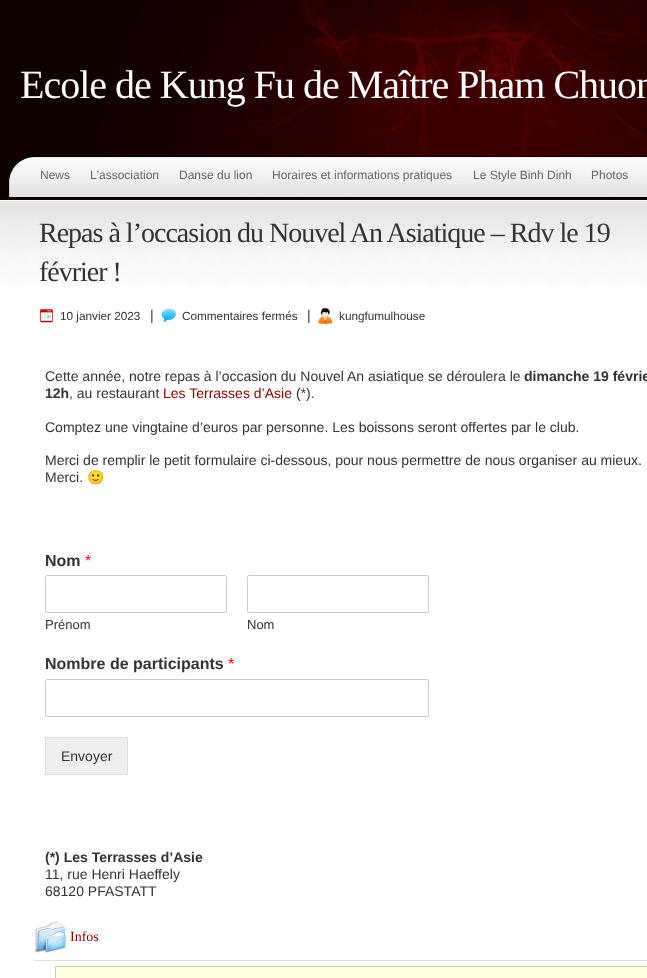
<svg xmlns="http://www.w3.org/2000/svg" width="647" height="978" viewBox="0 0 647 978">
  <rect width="100%" height="100%" fill="#fff"/>
  <image x="0" y="0" width="647" height="284" href="img/1.png"/>
  <image x="7" y="0" width="640" height="197" href="img/2.png"/>
  <image x="39" y="309" width="15" height="14" href="img/3.png"/>
  <image x="161" y="308" width="15" height="14" href="img/4.png"/>
  <image x="318" y="307" width="15" height="17" href="img/5.png"/>
  <rect x="45.5" y="575.5" width="181" height="37" rx="1.5" fill="none" stroke="#ccc"/>
  <rect x="247.5" y="575.5" width="181" height="37" rx="1.5" fill="none" stroke="#ccc"/>
  <rect x="45.5" y="679.5" width="383" height="37" rx="1.5" fill="none" stroke="#ccc"/>
  <path d="M45.5 737.5h82v37H45.5z" fill="#eee" stroke="#ddd"/>
  <image x="35" y="921" width="32" height="32" href="img/6.png"/>
  <path d="M35 960h612v1H35z" fill="#ddd"/>
  <path d="M55.5 966.5h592v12H55.5z" fill="#ffd" stroke="#cca"/>
  <text x="20" y="98" font-family="Liberation Serif" font-size="40" letter-spacing="-1" fill="#fff">Ecole de Kung Fu de Maître Pham Chuon</text>
  <g font-family="Liberation Sans" font-size="12" fill="#666">
    <text x="40" y="179">News</text>
    <text x="90" y="179">L'association</text>
    <text x="179" y="179">Danse du lion</text>
    <text x="272" y="179">Horaires et informations pratiques</text>
    <text x="473" y="179">Le Style Binh Dinh</text>
    <text x="591" y="179">Photos</text>
  </g>
  <g font-family="Liberation Serif" font-size="28" letter-spacing="-1" fill="#333">
    <text x="39" y="242">Repas à l’occasion du Nouvel An Asiatique – Rdv le 19</text>
    <text x="39" y="281">février !</text>
  </g>
  <text x="60" y="320" font-family="Liberation Sans" font-size="11.75" fill="#333">10 janvier 2023</text>
  <text x="150" y="320" font-family="Liberation Sans" font-size="14" fill="#333">|</text>
  <text x="182" y="320" font-family="Liberation Sans" font-size="11.75" fill="#333">Commentaires fermés</text>
  <text x="307" y="320" font-family="Liberation Sans" font-size="14" fill="#333">|</text>
  <text x="339" y="320" font-family="Liberation Sans" font-size="11.75" fill="#333">kungfumulhouse</text>
  <text x="45" y="381" font-family="Liberation Sans" font-size="14" fill="#333">Cette année, notre repas à l’occasion du Nouvel An asiatique se déroulera le</text>
  <g font-family="Liberation Sans" font-size="14" font-weight="bold" fill="#333">
    <text x="524" y="381">dimanche 19 févrie</text>
    <text x="45" y="398">12h</text>
  </g>
  <text x="69" y="398" font-family="Liberation Sans" font-size="14" fill="#333">, au restaurant</text>
  <text x="163" y="398" font-family="Liberation Sans" font-size="14" fill="#800">Les Terrasses d’Asie</text>
  <g font-family="Liberation Sans" font-size="14" fill="#333">
    <text x="296" y="398">(*).</text>
    <text x="45" y="432">Comptez une vingtaine d’euros par personne. Les boissons seront offertes par le club.</text>
    <text x="45" y="465">Merci de remplir le petit formulaire ci-dessous, pour nous permettre de nous organiser au mieux.</text>
    <text x="45" y="482">Merci.</text>
  </g>
  <text x="87" y="482" font-family="Noto Color Emoji" font-size="14" fill="#333">🙂</text>
  <text x="45" y="566" font-family="Liberation Sans" font-size="16" font-weight="bold" fill="#333">Nom</text>
  <text x="85" y="566" font-family="Liberation Sans" font-size="16" fill="#f00">*</text>
  <g font-family="Liberation Sans" font-size="13" fill="#333">
    <text x="45" y="629">Prénom</text>
    <text x="247" y="629">Nom</text>
  </g>
  <text x="45" y="669" font-family="Liberation Sans" font-size="16" font-weight="bold" fill="#333">Nombre de participants</text>
  <text x="228" y="669" font-family="Liberation Sans" font-size="16" fill="#f00">*</text>
  <text x="61" y="761" font-family="Liberation Sans" font-size="14" fill="#333">Envoyer</text>
  <text x="45" y="862" font-family="Liberation Sans" font-size="14" font-weight="bold" fill="#333">(*) Les Terrasses d’Asie</text>
  <g font-family="Liberation Sans" font-size="14" fill="#333">
    <text x="45" y="879">11, rue Henri Haeffely</text>
    <text x="45" y="896">68120 PFASTATT</text>
  </g>
  <text x="70" y="941" font-family="Liberation Serif" font-size="14" fill="#800">Infos</text>
</svg>
